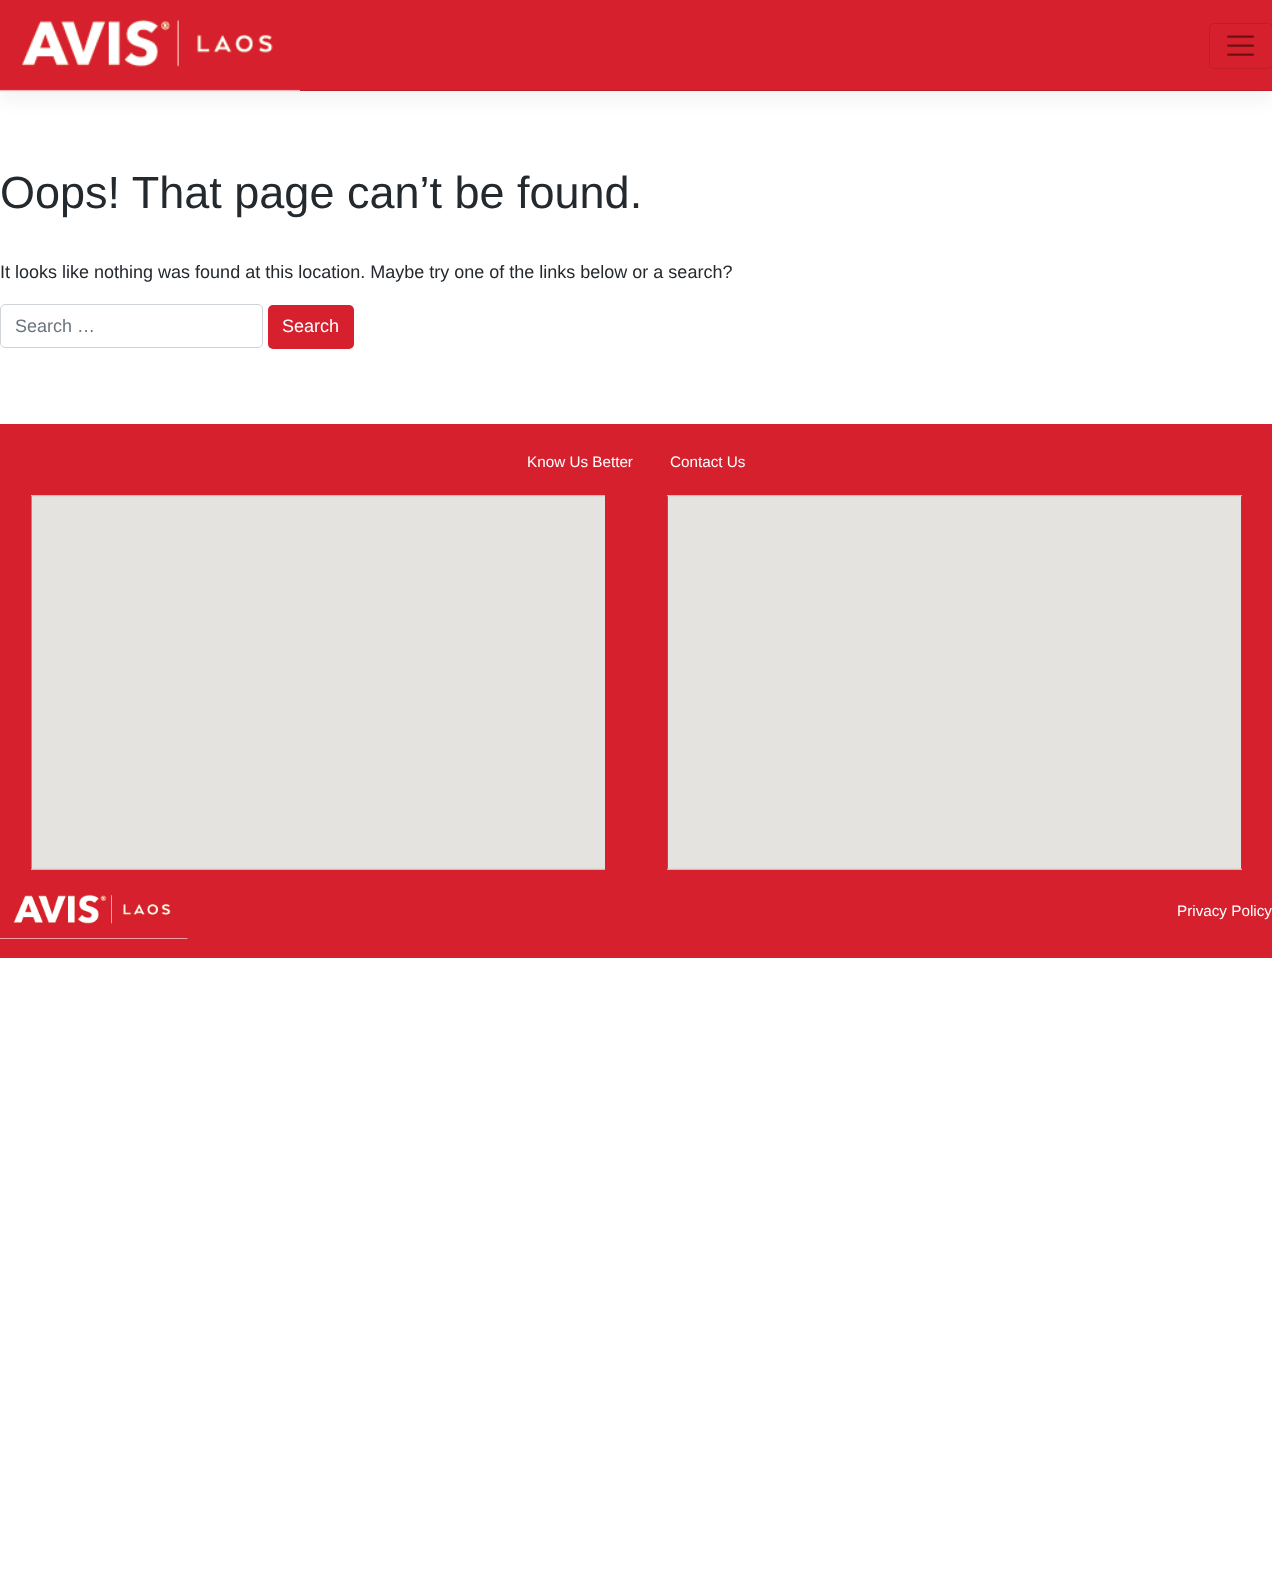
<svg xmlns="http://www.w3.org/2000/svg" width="1272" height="1573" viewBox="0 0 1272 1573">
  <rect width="100%" height="100%" fill="#fff"/>
  <path d="M0 9h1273v91H0z" fill="#0000000d" filter="blur(9px)"/>
  <path d="M0 0h1272v90H0z" fill="#d6202e"/>
  <path d="M300 90h972v1H300z" fill="#c11d29"/>
  <image x="0" y="19" width="300" height="73" href="img/1.png"/>
  <rect x="1209.5" y="23.5" width="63" height="45" rx="4.5" fill="none" stroke="#c11d29"/>
  <image x="1227" y="35" width="28" height="21" href="img/2.png"/>
  <rect x="0.5" y="304.5" width="262" height="43" rx="4.5" fill="none" stroke="#ced4da"/>
  <rect x="268" y="305" width="86" height="44" rx="5" fill="#d6202e"/>
  <path d="M0 424h1272v534H0z" fill="#d6202e"/>
  <image x="31" y="495" width="574" height="375" href="img/3.png"/>
  <image x="667" y="495" width="575" height="375" href="img/4.png"/>
  <image x="0" y="894" width="188" height="45" href="img/5.png"/>
  <text x="0" y="208" font-family="Liberation Sans" font-size="45" fill="#24292e">Oops! That page can’t be found.</text>
  <text x="0" y="278" font-family="Liberation Sans" font-size="18" fill="#24292e">It looks like nothing was found at this location. Maybe try one of the links below or a search?</text>
  <text x="15" y="332" font-family="Liberation Sans" font-size="18" fill="#6c757d">Search …</text>
  <text x="282" y="332" font-family="Liberation Sans" font-size="18" fill="#fff">Search</text>
  <g font-family="Liberation Sans" font-size="15.25" fill="#fff">
    <text x="527" y="467">Know Us Better</text>
    <text x="670" y="467">Contact Us</text>
    <text x="1177" y="916">Privacy Policy</text>
  </g>
</svg>
